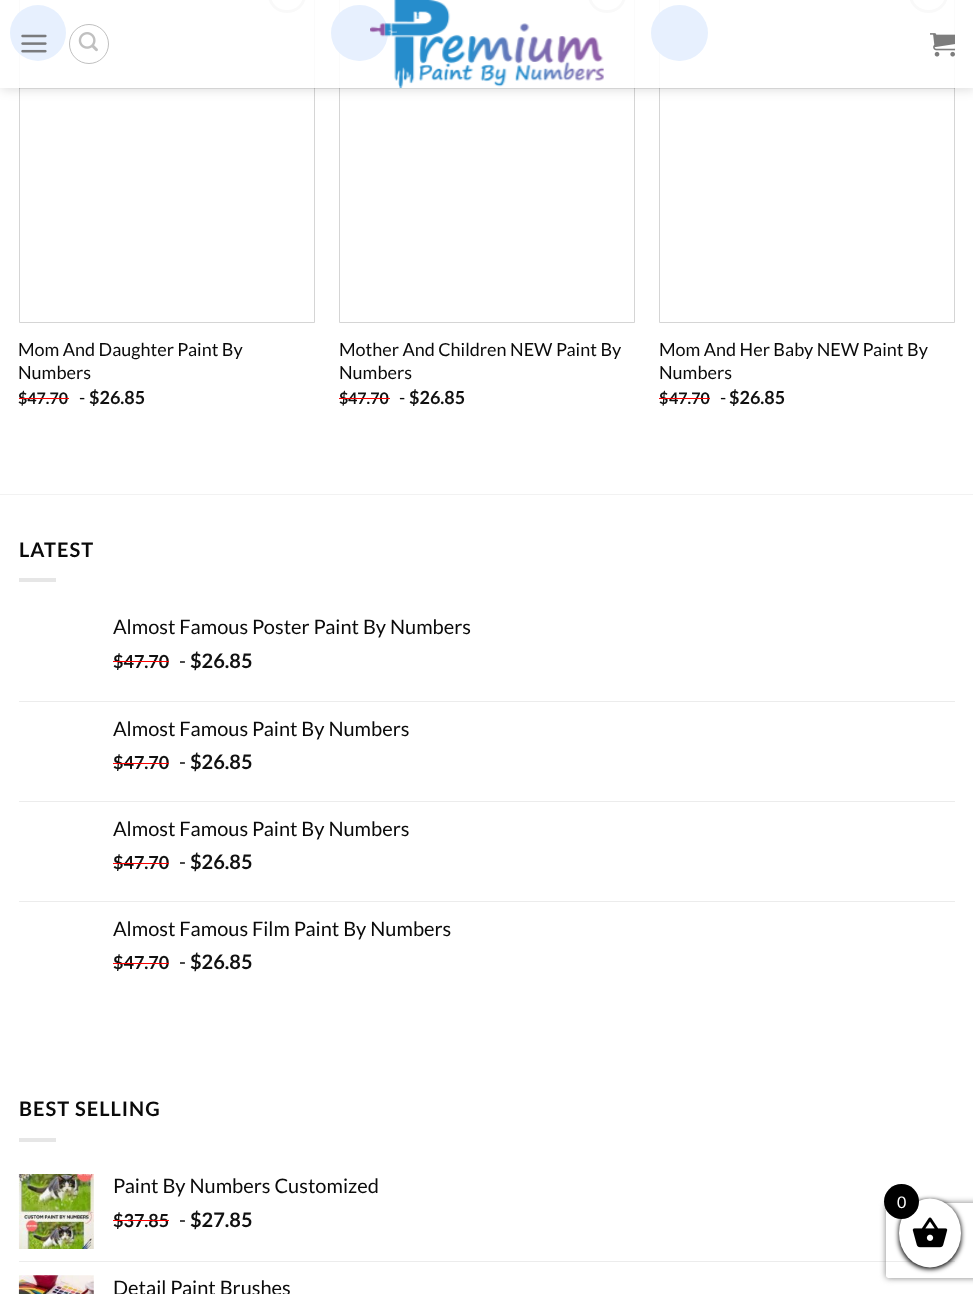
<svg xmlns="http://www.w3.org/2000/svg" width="973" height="1294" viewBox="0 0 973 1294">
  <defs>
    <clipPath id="clip1"><path d="M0 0H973V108H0ZM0 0H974V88H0Z" clip-rule="evenodd"/></clipPath>
    <clipPath id="clip2"><path d="M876 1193H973V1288H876ZM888.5 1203H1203.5C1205 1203 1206 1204 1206 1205.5V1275.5C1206 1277 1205 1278 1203.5 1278H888.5C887 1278 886 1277 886 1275.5V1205.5C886 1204 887 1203 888.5 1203Z" clip-rule="evenodd"/></clipPath>
  </defs>
  <rect width="100%" height="100%" fill="#fff"/>
  <path d="M19.5 -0.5h295v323H19.5z" fill="none" stroke="#d5d5d5"/>
  <circle cx="38" cy="33" r="28" fill="#0c6aed"/>
  <rect x="269.5" y="-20.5" width="35" height="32" rx="17.5" fill="none" stroke="#c0c0c0" stroke-width="3"/>
  <path d="M339.5 -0.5h295v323H339.5z" fill="none" stroke="#d5d5d5"/>
  <rect x="331" y="5" width="57" height="56" rx="28" fill="#0c6aed"/>
  <rect x="589.5" y="-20.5" width="35" height="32" rx="17.5" fill="none" stroke="#c0c0c0" stroke-width="3"/>
  <path d="M659.5 -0.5h295v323H659.5z" fill="none" stroke="#d5d5d5"/>
  <rect x="651" y="5" width="57" height="56" rx="28" fill="#0c6aed"/>
  <rect x="910.5" y="-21.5" width="36" height="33" rx="18" fill="none" stroke="#c0c0c0" stroke-width="3"/>
  <g clip-path="url(#clip1)">
    <path d="M1 1h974v88H1z" fill="#00000026" filter="blur(6px)"/>
  </g>
  <path d="M0 0h973v88H0z" fill="#ffffffe6"/>
  <image x="21" y="34" width="26" height="19" href="img/1.png"/>
  <circle cx="89" cy="44" r="19.5" fill="none" stroke="#c0c0c0"/>
  <image x="78" y="32" width="20" height="20" href="img/2.png"/>
  <image x="370" y="0" width="234" height="88" href="img/3.png"/>
  <image x="930" y="33" width="25" height="24" href="img/4.png"/>
  <path d="M19 88h936v1H19z" fill="#0a0a0a1a"/>
  <path d="M0 494h973v1H0z" fill="#f2f2f2"/>
  <path d="M19 578h37v4H19z" fill="#e6e6e6"/>
  <path d="M19 701h936v1H19z" fill="#ececec"/>
  <path d="M19 801h936v1H19z" fill="#ececec"/>
  <path d="M19 901h936v1H19z" fill="#ececec"/>
  <path d="M19 1138h37v4H19z" fill="#e6e6e6"/>
  <image x="18" y="1174" width="76" height="75" href="img/5.png"/>
  <path d="M19 1261h936v1H19z" fill="#ececec"/>
  <image x="18" y="1275" width="76" height="19" href="img/6.png"/>
  <g clip-path="url(#clip2)">
    <rect x="886" y="1203" width="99" height="75" rx="2.5" fill="#808080" filter="blur(3px)"/>
  </g>
  <rect x="899" y="1200" width="62" height="69" rx="31" fill="#000" filter="blur(2.5px)"/>
  <ellipse cx="930" cy="1233" rx="31" ry="34.5" fill="#fff"/>
  <circle cx="901.5" cy="1201.5" r="17.5" fill="#000"/>
  <image x="912" y="1217" width="36" height="31" href="img/7.png"/>
  <g font-family="Lato" font-size="18" fill="#0a0a0a">
    <text x="18" y="356">Mom And Daughter Paint By</text>
    <text x="18" y="379">Numbers</text>
  </g>
  <text x="18" y="404" font-family="Lato" font-size="16" font-weight="bold" fill="#111">$47.70</text>
  <path d="M19 398h50v1H19z" fill="#f00"/>
  <text x="79" y="404" font-family="Lato" font-size="18" fill="#0a0a0a">-</text>
  <text x="89" y="404" font-family="Lato" font-size="18" font-weight="bold" fill="#111">$26.85</text>
  <g font-family="Lato" font-size="18" fill="#0a0a0a">
    <text x="339" y="356">Mother And Children NEW Paint By</text>
    <text x="339" y="379">Numbers</text>
  </g>
  <text x="339" y="404" font-family="Lato" font-size="16" font-weight="bold" fill="#111">$</text>
  <path d="M339 398h10v1H339z" fill="#f00"/>
  <text x="348" y="404" font-family="Lato" font-size="16" font-weight="bold" fill="#111">47.70</text>
  <path d="M349 398h41v1H349z" fill="#f00"/>
  <text x="399" y="404" font-family="Lato" font-size="18" fill="#0a0a0a">-</text>
  <text x="409" y="404" font-family="Lato" font-size="18" font-weight="bold" fill="#111">$26.85</text>
  <g font-family="Lato" font-size="18" fill="#0a0a0a">
    <text x="659" y="356">Mom And Her Baby NEW Paint By</text>
    <text x="659" y="379">Numbers</text>
  </g>
  <text x="659" y="404" font-family="Lato" font-size="16" font-weight="bold" fill="#111">$</text>
  <path d="M659 398h10v1H659z" fill="#f00"/>
  <text x="669" y="404" font-family="Lato" font-size="16" font-weight="bold" fill="#111">47.70</text>
  <path d="M669 398h41v1H669z" fill="#f00"/>
  <text x="720" y="404" font-family="Lato" font-size="18" fill="#0a0a0a">-</text>
  <text x="729" y="404" font-family="Lato" font-size="18" font-weight="bold" fill="#111">$26.85</text>
  <text x="19" y="557" font-family="Lato" font-size="20" font-weight="bold" letter-spacing="1" fill="#0a0a0a">LATEST</text>
  <text x="113" y="634" font-family="Lato" font-size="20" fill="#0a0a0a">Almost Famous Poster Paint By Numbers</text>
  <text x="113" y="668" font-family="Lato" font-size="18" font-weight="bold" fill="#111">$47.70</text>
  <path d="M113 661h56v1H113z" fill="#f00"/>
  <text x="179" y="668" font-family="Lato" font-size="20" fill="#0a0a0a">-</text>
  <text x="190" y="668" font-family="Lato" font-size="20" font-weight="bold" fill="#111">$26.85</text>
  <text x="113" y="736" font-family="Lato" font-size="20" fill="#0a0a0a">Almost Famous Paint By Numbers</text>
  <text x="113" y="769" font-family="Lato" font-size="18" font-weight="bold" fill="#111">$47.70</text>
  <path d="M113 763h56v1H113z" fill="#f00"/>
  <text x="179" y="769" font-family="Lato" font-size="20" fill="#0a0a0a">-</text>
  <text x="190" y="769" font-family="Lato" font-size="20" font-weight="bold" fill="#111">$26.85</text>
  <text x="113" y="836" font-family="Lato" font-size="20" fill="#0a0a0a">Almost Famous Paint By Numbers</text>
  <text x="113" y="869" font-family="Lato" font-size="18" font-weight="bold" fill="#111">$47.70</text>
  <path d="M113 863h56v1H113z" fill="#f00"/>
  <text x="179" y="869" font-family="Lato" font-size="20" fill="#0a0a0a">-</text>
  <text x="190" y="869" font-family="Lato" font-size="20" font-weight="bold" fill="#111">$26.85</text>
  <text x="113" y="936" font-family="Lato" font-size="20" fill="#0a0a0a">Almost Famous Film Paint By Numbers</text>
  <text x="113" y="969" font-family="Lato" font-size="18" font-weight="bold" fill="#111">$47.70</text>
  <path d="M113 963h56v1H113z" fill="#f00"/>
  <text x="179" y="969" font-family="Lato" font-size="20" fill="#0a0a0a">-</text>
  <text x="190" y="969" font-family="Lato" font-size="20" font-weight="bold" fill="#111">$26.85</text>
  <text x="19" y="1116" font-family="Lato" font-size="20" font-weight="bold" letter-spacing="1" fill="#0a0a0a">BEST SELLING</text>
  <text x="113" y="1193" font-family="Lato" font-size="20" fill="#0a0a0a">Paint By Numbers Customized</text>
  <text x="113" y="1227" font-family="Lato" font-size="18" font-weight="bold" fill="#111">$37.85</text>
  <path d="M113 1220h56v1H113z" fill="#f00"/>
  <text x="179" y="1227" font-family="Lato" font-size="20" fill="#0a0a0a">-</text>
  <text x="190" y="1227" font-family="Lato" font-size="20" font-weight="bold" fill="#111">$27.85</text>
  <text x="113" y="1295" font-family="Lato" font-size="20" fill="#0a0a0a">Detail Paint Brushes</text>
  <text x="897" y="1208" font-family="Lato" font-size="16" fill="#fff">0</text>
</svg>
